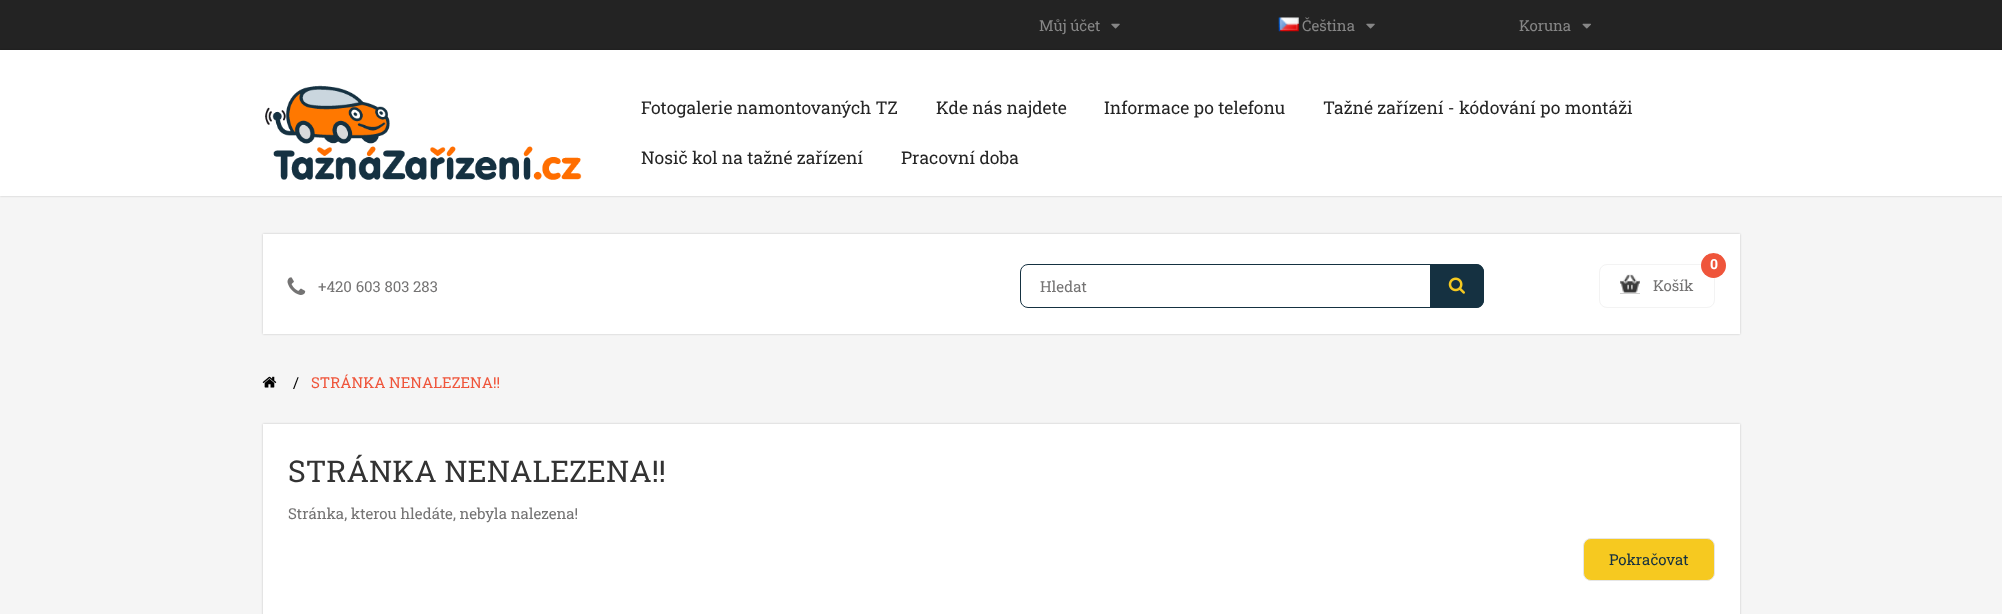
<svg xmlns="http://www.w3.org/2000/svg" width="2002" height="614" viewBox="0 0 2002 614">
  <rect width="100%" height="100%" fill="#f5f5f5"/>
  <path d="M0 0h2002v50H0z" fill="#232323"/>
  <image x="1111" y="23" width="9" height="6" href="img/1.png"/>
  <image x="1278" y="17" width="21" height="15" href="img/2.png"/>
  <image x="1366" y="23" width="9" height="6" href="img/1.png"/>
  <image x="1582" y="23" width="9" height="6" href="img/3.png"/>
  <path d="M0 50h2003v146H0z" fill="#00000033" filter="blur(1px)"/>
  <path d="M0 50h2002v146H0z" fill="#fff"/>
  <image x="265" y="85" width="317" height="96" href="img/4.png"/>
  <path d="M263 234h1477v100H263z" fill="#00000033" filter="blur(1px)"/>
  <path d="M263 234h1477v100H263z" fill="#fff"/>
  <image x="287" y="277" width="19" height="18" href="img/5.png"/>
  <rect x="1020.5" y="264.5" width="463" height="43" rx="7.5" fill="none" stroke="#153141"/>
  <path d="M1430 264H1476C1480.5 264 1484 267.5 1484 272V300C1484 304.5 1480.5 308 1476 308H1430Z" fill="#153141"/>
  <image x="1448" y="277" width="17" height="17" href="img/6.png"/>
  <rect x="1599.5" y="264.5" width="115" height="43" rx="7.5" fill="none" stroke="#f3f3f3"/>
  <path d="M1620 274h20v20H1620z" fill="#3c3c3c"/>
  <image x="1620" y="274" width="20" height="20" href="img/7.png"/>
  <circle cx="1713.5" cy="265.5" r="12.5" fill="#ef553b"/>
  <image x="262" y="376" width="15" height="12" href="img/8.png"/>
  <path d="M263 424h1477v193H263z" fill="#00000033" filter="blur(1px)"/>
  <path d="M263 424h1477v190H263z" fill="#fff"/>
  <rect x="1583.5" y="538.5" width="131" height="42" rx="7.5" fill="#f6c920" stroke="#e6e6e6"/>
  <g font-family="Roboto Slab" font-size="15" fill="#868686">
    <text x="1039" y="31">Můj účet</text>
    <text x="1302" y="31">Čeština</text>
    <text x="1519" y="31">Koruna</text>
  </g>
  <g font-family="Roboto Slab" font-size="17.5" fill="#252525">
    <text x="641" y="114">Fotogalerie namontovaných TZ</text>
    <text x="936" y="114">Kde nás najdete</text>
    <text x="1104" y="114">Informace po telefonu</text>
    <text x="1323" y="114">Tažné zařízení - kódování po montáži</text>
    <text x="641" y="164">Nosič kol na tažné zařízení</text>
    <text x="901" y="164">Pracovní doba</text>
  </g>
  <g font-family="Roboto Slab" font-size="15" fill="#747373">
    <text x="318" y="292">+420 603 803 283</text>
    <text x="1040" y="292">Hledat</text>
  </g>
  <text x="1710" y="269" font-family="Roboto Slab" font-size="14" font-weight="bold" fill="#fff">0</text>
  <text x="1653" y="291" font-family="Roboto Slab" font-size="15" fill="#747373">Košík</text>
  <text x="293" y="388" font-family="Roboto Slab" font-size="15" fill="#000">/</text>
  <text x="311" y="388" font-family="Roboto Slab" font-size="15" fill="#ef553b">STRÁNKA NENALEZENA!!</text>
  <text x="288" y="482" font-family="Roboto Slab" font-size="30" fill="#333">STRÁNKA NENALEZENA!!</text>
  <text x="288" y="519" font-family="Roboto Slab" font-size="15" fill="#747373">Stránka, kterou hledáte, nebyla nalezena!</text>
  <text x="1609" y="565" font-family="Roboto Slab" font-size="15" fill="#153141">Pokračovat</text>
</svg>
